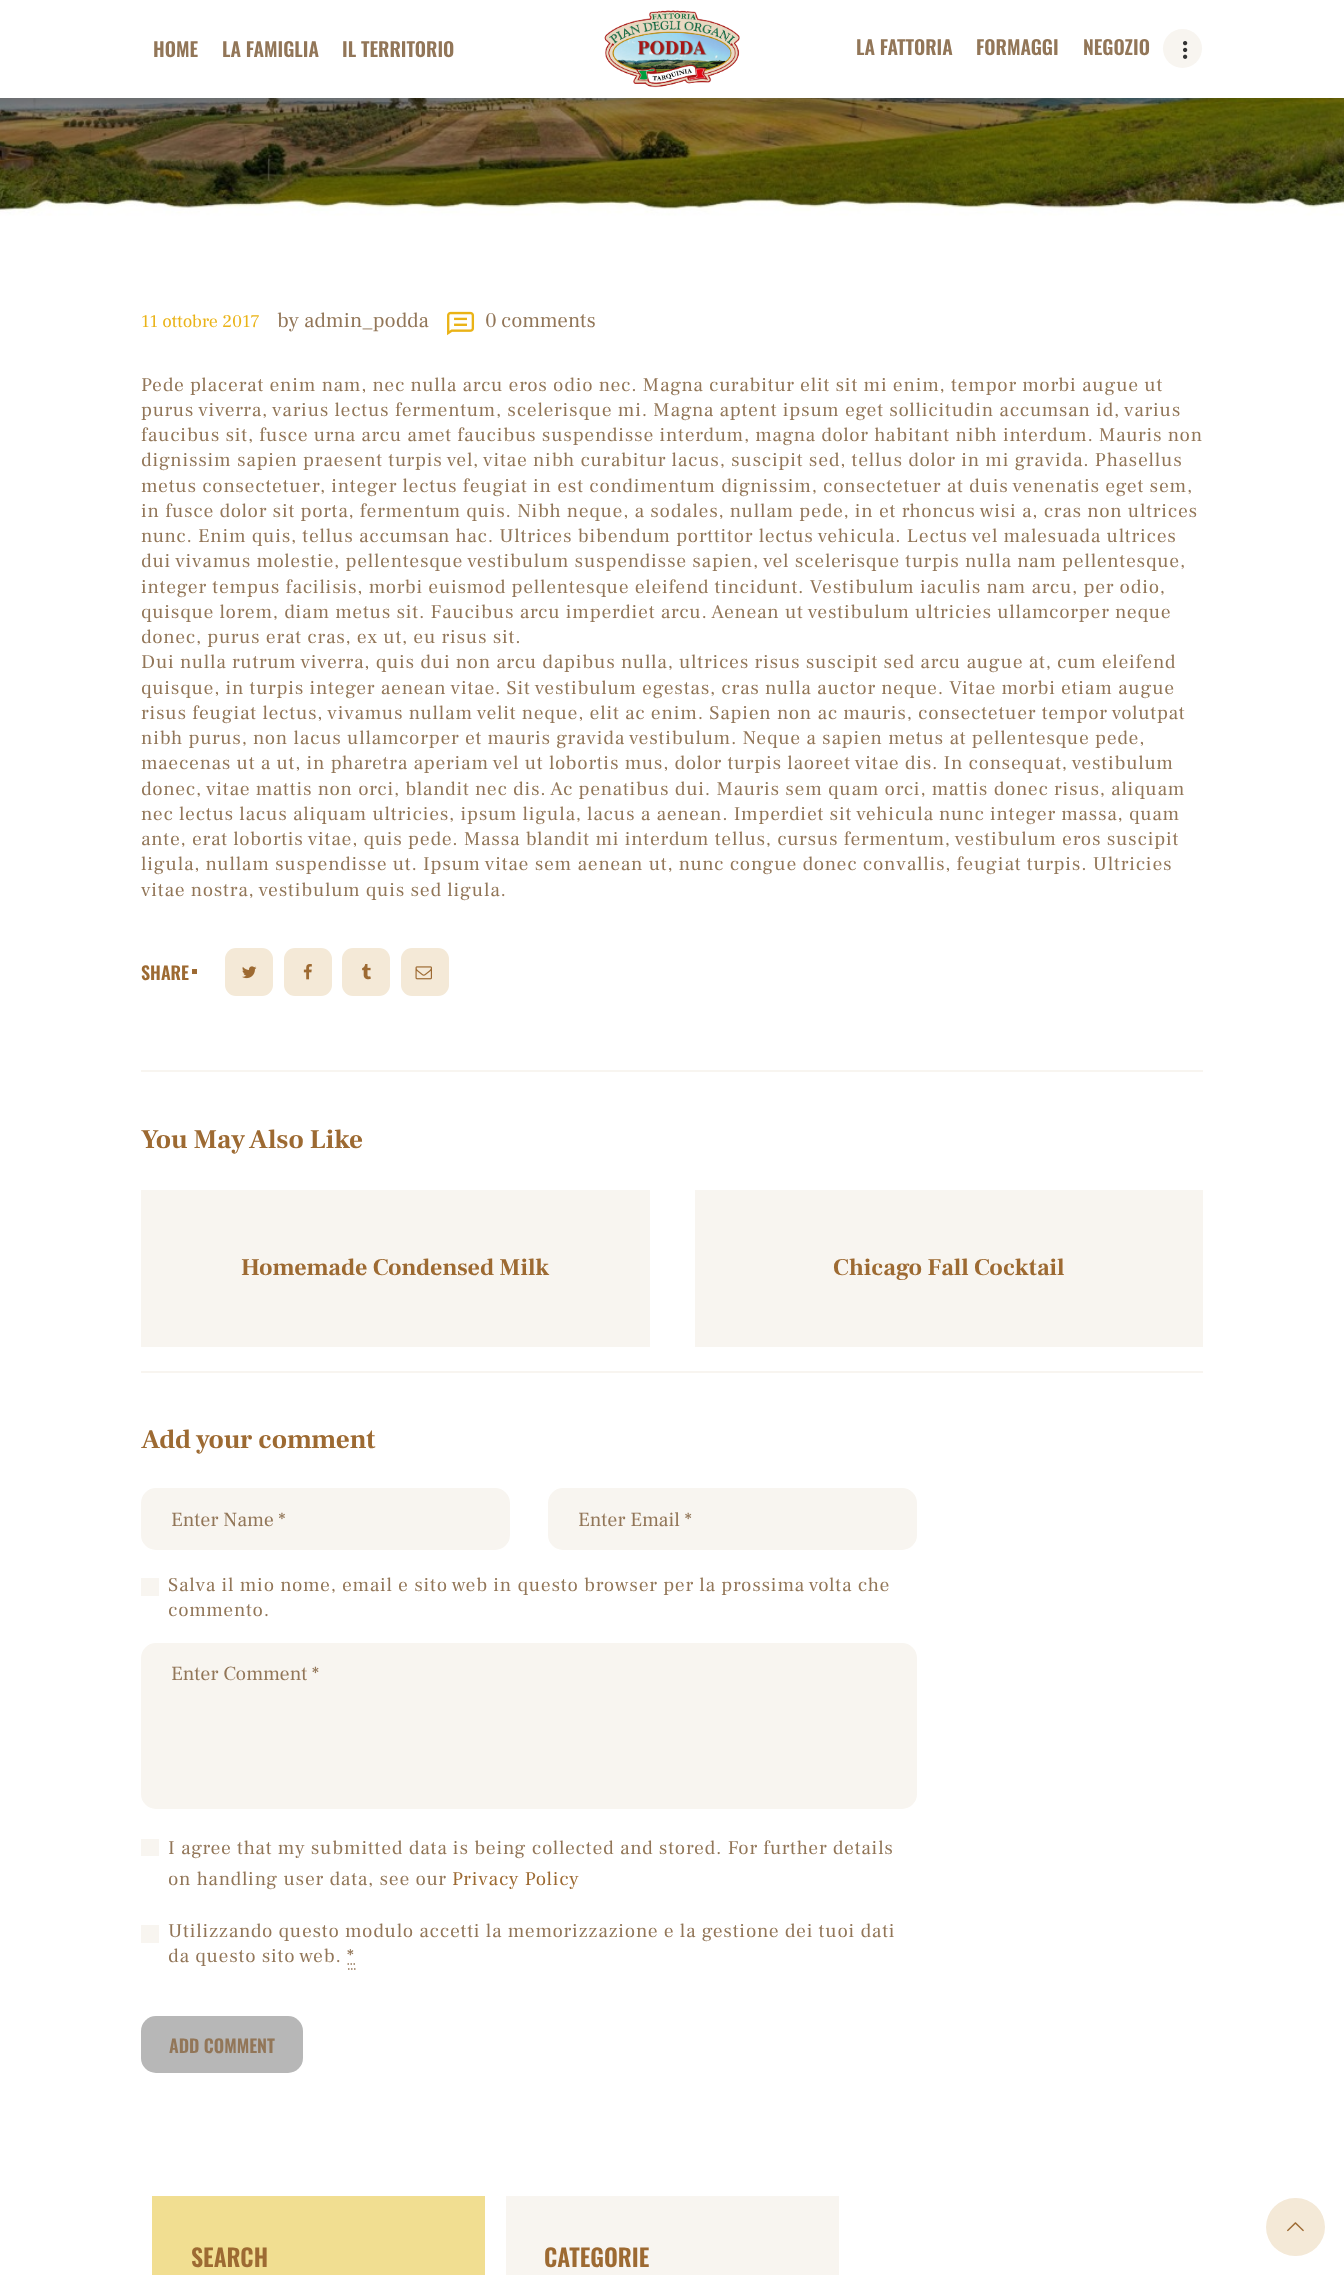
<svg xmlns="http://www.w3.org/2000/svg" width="1344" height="2275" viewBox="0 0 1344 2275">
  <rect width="100%" height="100%" fill="#fff"/>
  <image x="0" y="98" width="1344" height="118" href="img/3.png"/>
  <path d="M-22 3h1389v98H-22z" fill="#00000033" filter="blur(7.5px)"/>
  <path d="M0 0h1344v98H0z" fill="#fff"/>
  <image x="604" y="10" width="136" height="78" href="img/1.png"/>
  <circle cx="1182.5" cy="48.5" r="19.5" fill="#f8f5f0"/>
  <image x="1183" y="41" width="5" height="18" href="img/2.png"/>
  <image x="447" y="311" width="28" height="25" href="img/4.png"/>
  <path d="M192 969h5v5H192z" fill="#9d6a32"/>
  <rect x="225" y="948" width="48" height="48" rx="11" fill="#f4e9d7"/>
  <image x="242" y="966" width="15" height="13" href="img/5.png"/>
  <rect x="284" y="948" width="48" height="48" rx="11" fill="#f4e9d7"/>
  <image x="303" y="964" width="9" height="16" href="img/6.png"/>
  <rect x="342" y="948" width="48" height="48" rx="11" fill="#f4e9d7"/>
  <image x="362" y="964" width="9" height="16" href="img/7.png"/>
  <rect x="401" y="948" width="48" height="48" rx="11" fill="#f4e9d7"/>
  <image x="415" y="966" width="17" height="14" href="img/8.png"/>
  <path d="M141 1070h1062v2H141z" fill="#f8f5f0"/>
  <path d="M141 1190h509v157H141z" fill="#f8f5f0"/>
  <path d="M695 1190h508v157H695z" fill="#f8f5f0"/>
  <path d="M141 1371h1062v2H141z" fill="#f8f5f0"/>
  <rect x="142" y="1489" width="367" height="60" rx="14" fill="#f8f5f0" stroke="#f8f5f0" stroke-width="2"/>
  <rect x="549" y="1489" width="367" height="60" rx="14" fill="#f8f5f0" stroke="#f8f5f0" stroke-width="2"/>
  <path d="M141 1578h18v18H141z" fill="#f8f5f0"/>
  <rect x="142" y="1644" width="774" height="164" rx="14" fill="#f8f5f0" stroke="#f8f5f0" stroke-width="2"/>
  <path d="M141 1839h18v17H141z" fill="#f8f5f0"/>
  <path d="M141 1925h18v18H141z" fill="#f8f5f0"/>
  <path d="M348 1969H349.5M351 1969H352.5M354 1969H355.5M347.5 1964H349M350.5 1964H352M353.5 1964H355" fill="none" stroke="#927658" stroke-width="1.5"/>
  <rect x="141" y="2016" width="162" height="57" rx="15" fill="#b7b7b7"/>
  <path d="M152 2196h333v79H152z" fill="#f1de91"/>
  <path d="M506 2196h333v79H506z" fill="#f8f5f0"/>
  <rect x="1266" y="2198" width="59" height="58" rx="29" fill="#f4e9d7"/>
  <image x="1287" y="2222" width="17" height="10" href="img/9.png"/>
  <g font-family="Oswald" font-size="19.5" font-weight="600" fill="#927658">
    <text x="153" y="57">HOME</text>
    <text x="222" y="57">LA FAMIGLIA</text>
    <text x="342" y="57">IL TERRITORIO</text>
    <text x="856" y="55">LA FATTORIA</text>
    <text x="976" y="55">FORMAGGI</text>
    <text x="1083" y="55">NEGOZIO</text>
  </g>
  <text x="141" y="327" font-family="Frank Ruhl Libre" font-size="18" fill="#eab317">11 ottobre 2017</text>
  <g font-family="Frank Ruhl Libre" font-size="21" fill="#927658">
    <text x="277" y="327">by admin_podda</text>
    <text x="485" y="327">0</text>
    <text x="501" y="327">comments</text>
  </g>
  <g font-family="Frank Ruhl Libre" font-size="19.5" letter-spacing="0.75" fill="#927658">
    <text x="141" y="391">Pede placerat enim nam, nec nulla arcu eros odio nec. Magna curabitur elit sit mi enim, tempor morbi augue ut</text>
    <text x="141" y="416">purus viverra, varius lectus fermentum, scelerisque mi. Magna aptent ipsum eget sollicitudin accumsan id, varius</text>
    <text x="141" y="441">faucibus sit, fusce urna arcu amet faucibus suspendisse interdum, magna dolor habitant nibh interdum. Mauris non</text>
    <text x="141" y="466">dignissim sapien praesent turpis vel, vitae nibh curabitur lacus, suscipit sed, tellus dolor in mi gravida. Phasellus</text>
    <text x="141" y="492">metus consectetuer, integer lectus feugiat in est condimentum dignissim, consectetuer at duis venenatis eget sem,</text>
    <text x="141" y="517">in fusce dolor sit porta, fermentum quis. Nibh neque, a sodales, nullam pede, in et rhoncus wisi a, cras non ultrices</text>
    <text x="141" y="542">nunc. Enim quis, tellus accumsan hac. Ultrices bibendum porttitor lectus vehicula. Lectus vel malesuada ultrices</text>
    <text x="141" y="567">dui vivamus molestie, pellentesque vestibulum suspendisse sapien, vel scelerisque turpis nulla nam pellentesque,</text>
    <text x="141" y="593">integer tempus facilisis, morbi euismod pellentesque eleifend tincidunt. Vestibulum iaculis nam arcu, per odio,</text>
    <text x="141" y="618">quisque lorem, diam metus sit. Faucibus arcu imperdiet arcu. Aenean ut vestibulum ultricies ullamcorper neque</text>
    <text x="141" y="643">donec, purus erat cras, ex ut, eu risus sit.</text>
    <text x="141" y="668">Dui nulla rutrum viverra, quis dui non arcu dapibus nulla, ultrices risus suscipit sed arcu augue at, cum eleifend</text>
    <text x="141" y="694">quisque, in turpis integer aenean vitae. Sit vestibulum egestas, cras nulla auctor neque. Vitae morbi etiam augue</text>
    <text x="141" y="719">risus feugiat lectus, vivamus nullam velit neque, elit ac enim. Sapien non ac mauris, consectetuer tempor volutpat</text>
    <text x="141" y="744">nibh purus, non lacus ullamcorper et mauris gravida vestibulum. Neque a sapien metus at pellentesque pede,</text>
    <text x="141" y="769">maecenas ut a ut, in pharetra aperiam vel ut lobortis mus, dolor turpis laoreet vitae dis. In consequat, vestibulum</text>
    <text x="141" y="795">donec, vitae mattis non orci, blandit nec dis. Ac penatibus dui. Mauris sem quam orci, mattis donec risus, aliquam</text>
    <text x="141" y="820">nec lectus lacus aliquam ultricies, ipsum ligula, lacus a aenean. Imperdiet sit vehicula nunc integer massa, quam</text>
    <text x="141" y="845">ante, erat lobortis vitae, quis pede. Massa blandit mi interdum tellus, cursus fermentum, vestibulum eros suscipit</text>
    <text x="141" y="870">ligula, nullam suspendisse ut. Ipsum vitae sem aenean ut, nunc congue donec convallis, feugiat turpis. Ultricies</text>
    <text x="141" y="896">vitae nostra, vestibulum quis sed ligula.</text>
  </g>
  <text x="141" y="980" font-family="Oswald" font-size="18" font-weight="600" fill="#9d6a32">SHARE</text>
  <text x="141" y="1148" font-family="Frank Ruhl Libre" font-size="27" font-weight="bold" fill="#9d6a32">You May Also Like</text>
  <g font-family="Frank Ruhl Libre" font-size="24" font-weight="bold" fill="#9d6a32">
    <text x="241" y="1275">Homemade Condensed Milk</text>
    <text x="833" y="1275">Chicago Fall Cocktail</text>
  </g>
  <text x="141" y="1448" font-family="Frank Ruhl Libre" font-size="27" font-weight="bold" fill="#9d6a32">Add your comment</text>
  <g font-family="Frank Ruhl Libre" font-size="20" fill="#927658">
    <text x="171" y="1526">Enter Name *</text>
    <text x="578" y="1526">Enter Email *</text>
  </g>
  <g font-family="Frank Ruhl Libre" font-size="19.5" letter-spacing="0.75" fill="#927658">
    <text x="168" y="1591">Salva il mio nome, email e sito web in questo browser per la prossima volta che</text>
    <text x="168" y="1616">commento.</text>
  </g>
  <text x="171" y="1680" font-family="Frank Ruhl Libre" font-size="20" fill="#927658">Enter Comment *</text>
  <g font-family="Frank Ruhl Libre" font-size="19.5" letter-spacing="0.75" fill="#927658">
    <text x="168" y="1854">I agree that my submitted data is being collected and stored. For further details</text>
    <text x="168" y="1885">on handling user data, see our</text>
  </g>
  <text x="452" y="1885" font-family="Frank Ruhl Libre" font-size="19.5" letter-spacing="0.75" fill="#9d6a32">Privacy Policy</text>
  <g font-family="Frank Ruhl Libre" font-size="19.5" letter-spacing="0.75" fill="#927658">
    <text x="168" y="1937">Utilizzando questo modulo accetti la memorizzazione e la gestione dei tuoi dati</text>
    <text x="168" y="1962">da questo sito web. *</text>
  </g>
  <text x="169" y="2053" font-family="Oswald" font-size="18" font-weight="600" fill="#927658">ADD COMMENT</text>
  <g font-family="Oswald" font-size="24" font-weight="600" fill="#9d6a32">
    <text x="191" y="2267">SEARCH</text>
    <text x="544" y="2267">CATEGORIE</text>
  </g>
</svg>
